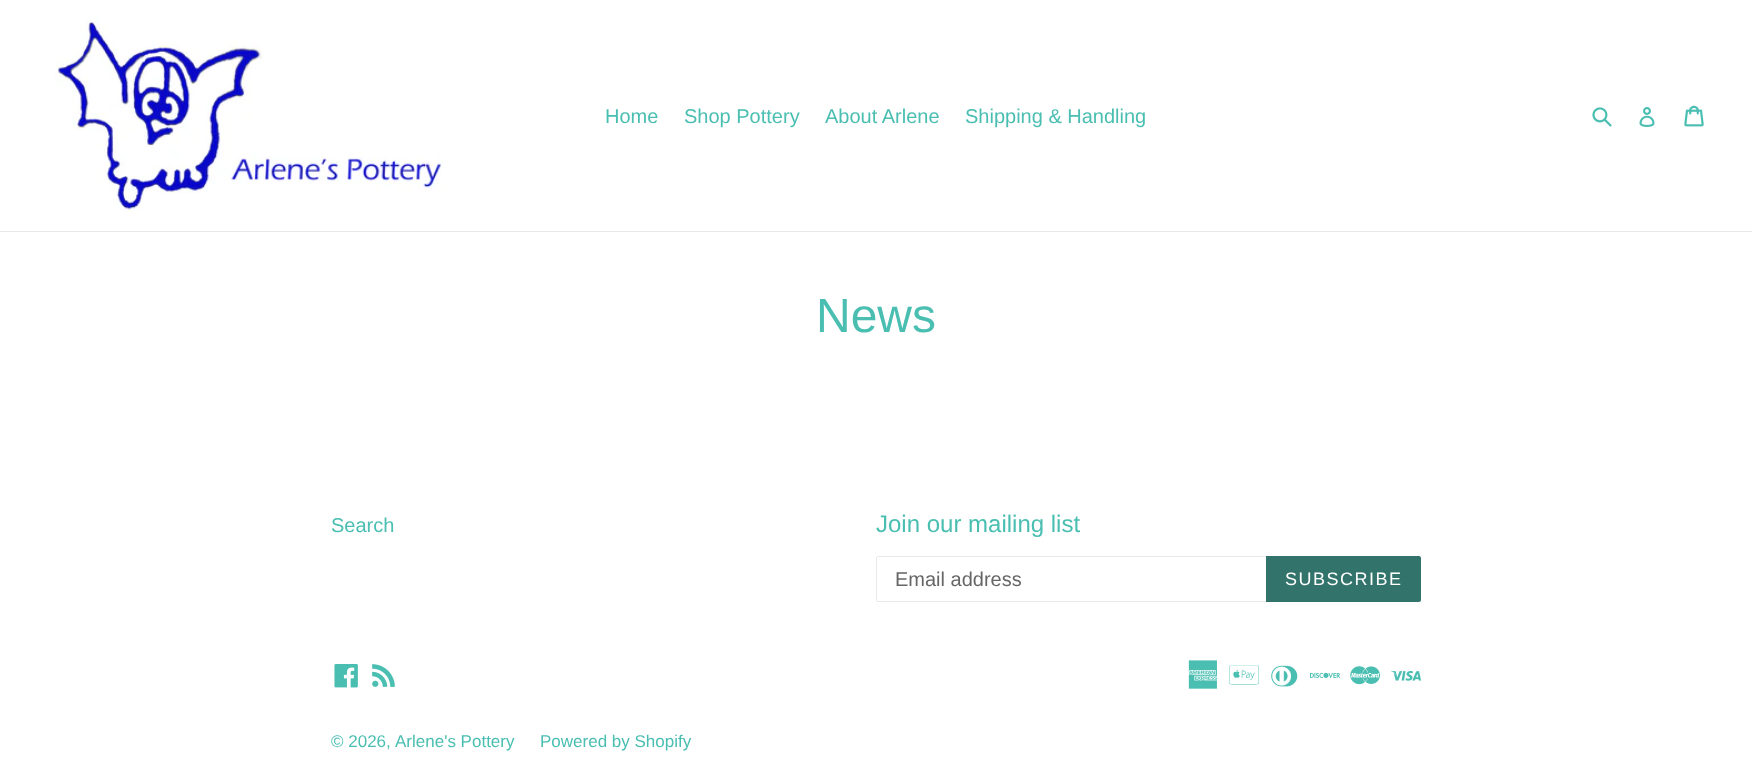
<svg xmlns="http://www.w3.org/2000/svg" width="1752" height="763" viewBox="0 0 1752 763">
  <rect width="100%" height="100%" fill="#fff"/>
  <path d="M0 231h1752v1H0z" fill="#e8e9eb"/>
  <image x="55" y="15" width="389" height="196" href="img/1.png"/>
  <image x="1592" y="107" width="20" height="20" href="img/2.png"/>
  <image x="1639" y="107" width="16" height="20" href="img/3.png"/>
  <image x="1684" y="105" width="20" height="22" href="img/4.png"/>
  <path d="M877 556h389v1H877z" fill="#e8e9eb"/>
  <path d="M877 601h389v1H877z" fill="#e8e9eb"/>
  <path d="M876 557h1v44H876z" fill="#e8e9eb"/>
  <path d="M1266 556H1419C1420 556 1421 557 1421 558V600C1421 601 1420 602 1419 602H1266Z" fill="#32736b"/>
  <image x="334" y="664" width="24" height="24" href="img/5.png"/>
  <image x="372" y="664" width="23" height="23" href="img/6.png"/>
  <image x="1188" y="660" width="30" height="29" href="img/7.png"/>
  <image x="1229" y="665" width="30" height="20" href="img/8.png"/>
  <image x="1271" y="665" width="27" height="22" href="img/9.png"/>
  <image x="1310" y="672" width="30" height="6" href="img/10.png"/>
  <image x="1350" y="666" width="30" height="19" href="img/11.png"/>
  <image x="1391" y="671" width="30" height="10" href="img/12.png"/>
  <g font-family="Liberation Sans" font-size="20" fill="#49beb1">
    <text x="605" y="123">Home</text>
    <text x="684" y="123">Shop Pottery</text>
    <text x="825" y="123">About Arlene</text>
    <text x="965" y="123">Shipping &amp; Handling</text>
  </g>
  <text x="816" y="332" font-family="Liberation Sans" font-size="48" fill="#49beb1">News</text>
  <text x="331" y="532" font-family="Liberation Sans" font-size="20" fill="#49beb1">Search</text>
  <text x="876" y="532" font-family="Liberation Sans" font-size="24" fill="#49beb1">Join our mailing list</text>
  <text x="895" y="586" font-family="Liberation Sans" font-size="20" fill="#666">Email address</text>
  <text x="1285" y="585" font-family="Liberation Sans" font-size="18" letter-spacing="1.5" fill="#fff">SUBSCRIBE</text>
  <g font-family="Liberation Sans" font-size="17" fill="#49beb1">
    <text x="331" y="747">© 2026,</text>
    <text x="395" y="747">Arlene's Pottery</text>
    <text x="540" y="747">Powered by Shopify</text>
  </g>
</svg>
